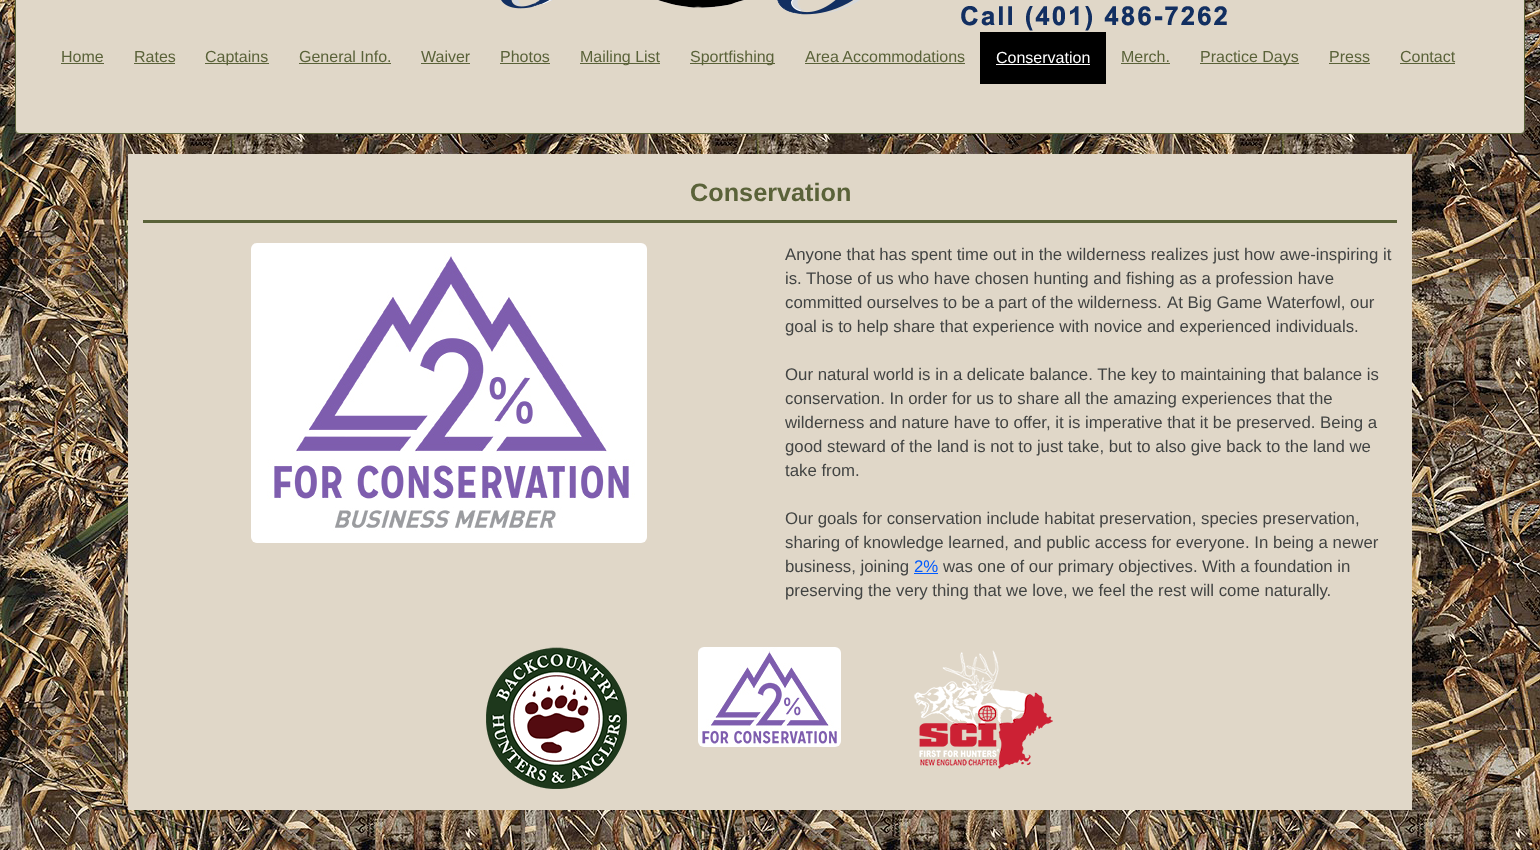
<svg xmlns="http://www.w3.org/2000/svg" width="1540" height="850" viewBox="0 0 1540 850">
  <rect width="100%" height="100%" fill="#fff"/>
  <image x="0" y="0" width="1540" height="850" href="img/1.png"/>
  <rect x="15.5" y="-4.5" width="1509" height="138" rx="3.5" fill="#e0d7c8" stroke="#5a6239"/>
  <image x="501" y="0" width="726" height="31" href="img/2.png"/>
  <path d="M61 63h43v1H61z" fill="#5a6239"/>
  <path d="M134 63h41v1H134z" fill="#5a6239"/>
  <path d="M205 63h64v1H205z" fill="#5a6239"/>
  <path d="M299 63h92v1H299z" fill="#5a6239"/>
  <path d="M421 63h49v1H421z" fill="#5a6239"/>
  <path d="M500 63h50v1H500z" fill="#5a6239"/>
  <path d="M580 63h80v1H580z" fill="#5a6239"/>
  <path d="M690 63h85v1H690z" fill="#5a6239"/>
  <path d="M805 63h160v1H805z" fill="#5a6239"/>
  <path d="M980 32h126v52H980z" fill="#000"/>
  <path d="M996 64h94v1H996z" fill="#fff"/>
  <path d="M1121 63h49v1H1121z" fill="#5a6239"/>
  <path d="M1200 63h99v1H1200z" fill="#5a6239"/>
  <path d="M1329 63h41v1H1329z" fill="#5a6239"/>
  <path d="M1400 63h55v1H1400z" fill="#5a6239"/>
  <path d="M128 154h1284v656H128z" fill="#e0d7c8"/>
  <path d="M143 220h1254v3H143z" fill="#5a6239"/>
  <image x="251" y="243" width="396" height="300" href="img/3.png"/>
  <path d="M914 573h24v1H914z" fill="#005aff"/>
  <image x="486" y="647" width="141" height="142" href="img/4.png"/>
  <image x="698" y="647" width="143" height="100" href="img/5.png"/>
  <image x="914" y="650" width="139" height="119" href="img/6.png"/>
  <g font-family="Liberation Sans" font-size="16" fill="#5a6239">
    <text x="61" y="62">Home</text>
    <text x="134" y="62">Rates</text>
    <text x="205" y="62">Captains</text>
    <text x="299" y="62">General Info.</text>
    <text x="421" y="62">Waiver</text>
    <text x="500" y="62">Photos</text>
    <text x="580" y="62">Mailing List</text>
    <text x="690" y="62">Sportfishing</text>
    <text x="805" y="62">Area Accommodations</text>
  </g>
  <text x="996" y="63" font-family="Liberation Sans" font-size="16" fill="#fff">Conservation</text>
  <g font-family="Liberation Sans" font-size="16" fill="#5a6239">
    <text x="1121" y="62">Merch.</text>
    <text x="1200" y="62">Practice Days</text>
    <text x="1329" y="62">Press</text>
    <text x="1400" y="62">Contact</text>
  </g>
  <text x="690" y="201" font-family="Liberation Sans" font-size="25.25" font-weight="bold" fill="#5a6239">Conservation</text>
  <g font-family="Liberation Sans" font-size="16.8" fill="#424443">
    <text x="785" y="260">Anyone that has spent time out in the wilderness realizes just how awe-inspiring it</text>
    <text x="785" y="284">is.</text>
    <text x="806" y="284">Those of us who have chosen hunting and fishing as a profession have</text>
    <text x="785" y="308" word-spacing="-0.25">committed ourselves to be a part of the wilderness.</text>
    <text x="1167" y="308">At Big Game Waterfowl, our</text>
    <text x="785" y="332">goal is to help share that experience with novice and experienced individuals.</text>
    <text x="785" y="380">Our natural world is in a delicate balance. The key to maintaining that balance is</text>
    <text x="785" y="404">conservation. In order for us to share all the amazing experiences that the</text>
    <text x="785" y="428">wilderness and nature have to offer, it is imperative that it be preserved. Being a</text>
    <text x="785" y="452">good steward of the land is not to just take, but to also give back to the land we</text>
    <text x="785" y="476">take from.</text>
    <text x="785" y="524">Our goals for conservation include habitat preservation, species preservation,</text>
    <text x="785" y="548">sharing of knowledge learned, and public access for everyone. In being a newer</text>
    <text x="785" y="572">business, joining</text>
  </g>
  <text x="914" y="572" font-family="Liberation Sans" font-size="16.8" fill="#005aff">2%</text>
  <g font-family="Liberation Sans" font-size="16.8" fill="#424443">
    <text x="943" y="572">was one of our primary objectives.</text>
    <text x="1202" y="572">With a foundation in</text>
    <text x="785" y="596">preserving the very thing that we love, we feel the rest will come naturally.</text>
  </g>
</svg>
